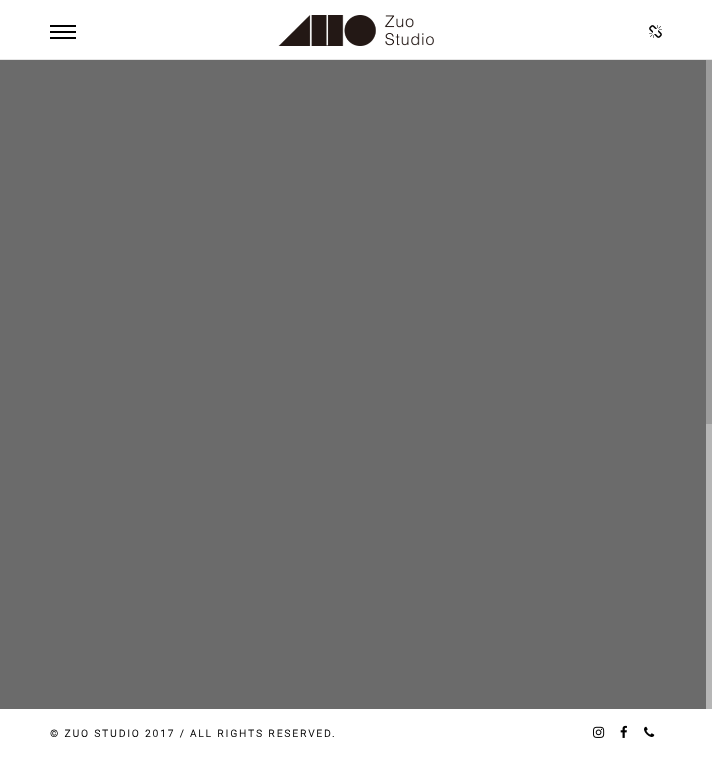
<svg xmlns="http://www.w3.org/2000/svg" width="712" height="759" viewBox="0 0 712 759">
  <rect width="100%" height="100%" fill="#6b6b6b"/>
  <path d="M0 0h712v59H0z" fill="#fff"/>
  <path d="M0 59h712v1H0z" fill="#e6e6e6"/>
  <path d="M50 25h26v2H50z" fill="#000"/>
  <path d="M50 31h26v2H50z" fill="#000"/>
  <path d="M50 37h26v2H50z" fill="#000"/>
  <image x="278" y="15" width="156" height="31" href="img/1.png"/>
  <image x="649" y="25" width="13" height="13" href="img/2.png"/>
  <path d="M706 424h6v285H706z" fill="#b6b6b6"/>
  <path d="M706 60h6v364H706z" fill="#9c9c9c"/>
  <path d="M0 709h712v50H0z" fill="#fff"/>
  <image x="593" y="726" width="12" height="12" href="img/3.png"/>
  <image x="620" y="725" width="7" height="13" href="img/4.png"/>
  <image x="644" y="726" width="11" height="11" href="img/5.png"/>
  <text x="50" y="737" font-family="Roboto" font-size="10" font-weight="bold" letter-spacing="2" fill="#000">© ZUO STUDIO 2017 / ALL RIGHTS RESERVED.</text>
</svg>
